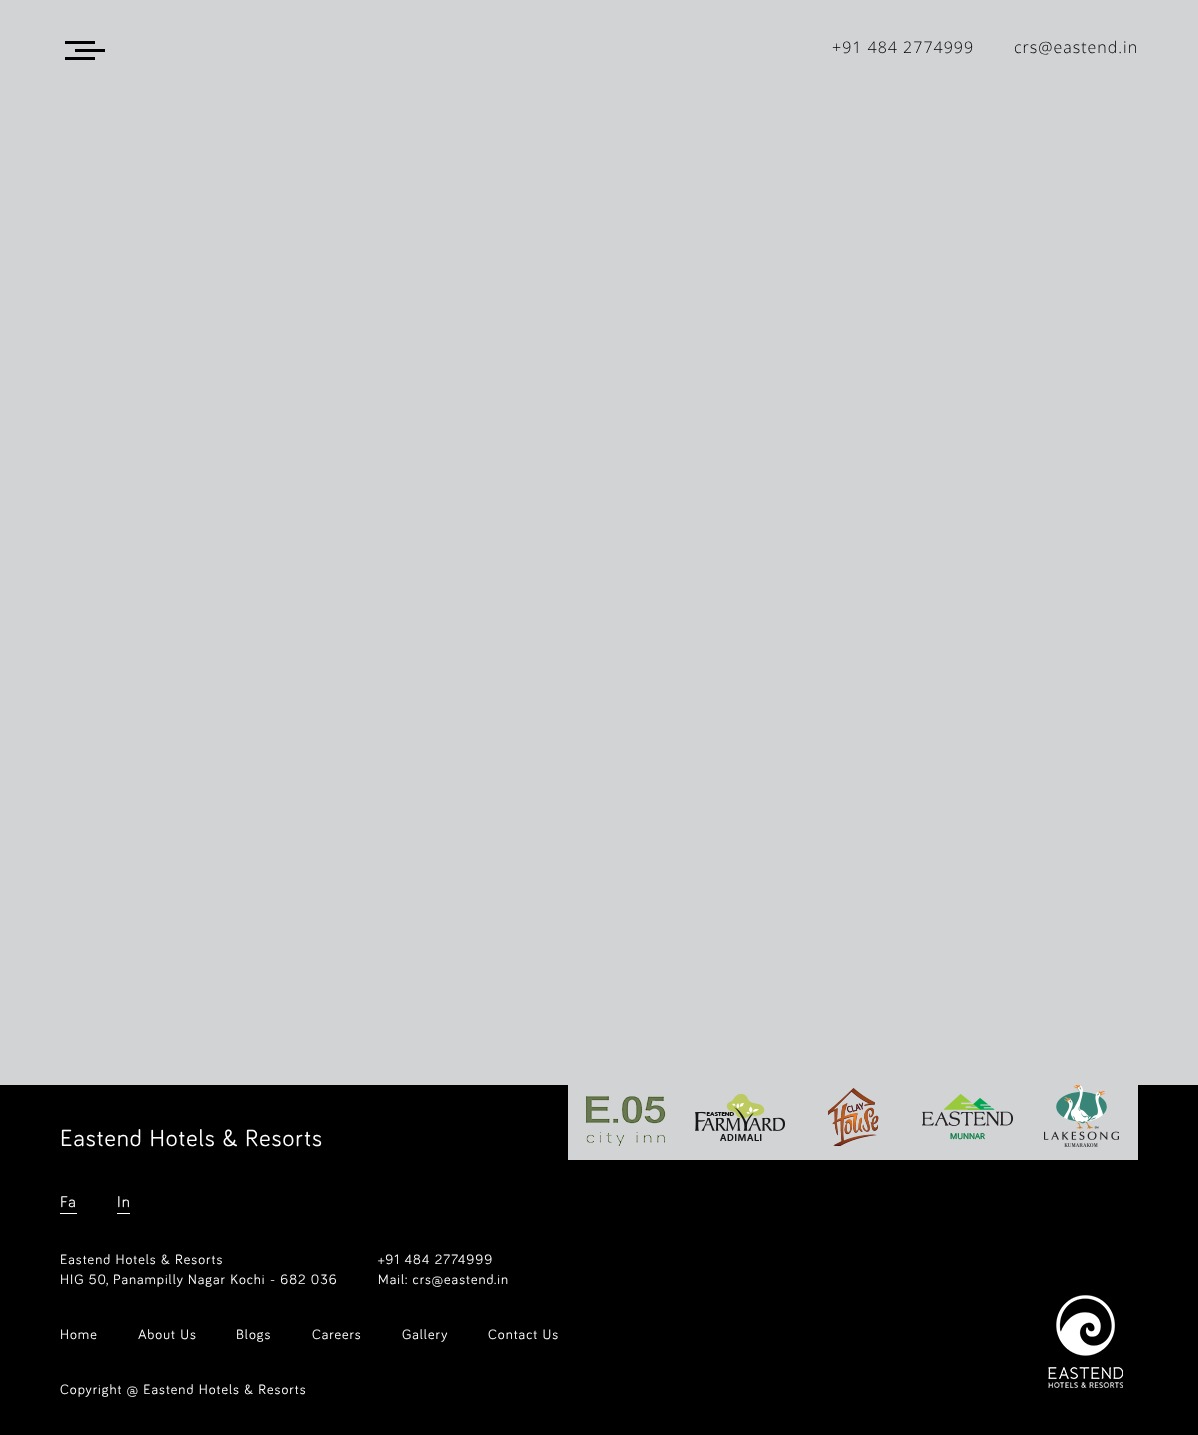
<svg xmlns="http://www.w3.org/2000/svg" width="1198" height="1435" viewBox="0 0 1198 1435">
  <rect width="100%" height="100%" fill="#d2d3d5"/>
  <path d="M65 41h30v3H65z" fill="#000"/>
  <path d="M75 49h30v3H75z" fill="#000"/>
  <path d="M65 57h30v3H65z" fill="#000"/>
  <path d="M0 1085h1198v350H0z" fill="#000"/>
  <path d="M60 1213h17v1H60z" fill="#fff"/>
  <path d="M117 1213h13v1H117z" fill="#fff"/>
  <path d="M568 1085h570v75H568z" fill="#d2d3d5"/>
  <image x="586" y="1096" width="80" height="50" href="img/1.png"/>
  <image x="695" y="1094" width="90" height="47" href="img/2.png"/>
  <image x="828" y="1088" width="51" height="58" href="img/3.png"/>
  <image x="922" y="1094" width="91" height="46" href="img/4.png"/>
  <image x="1044" y="1085" width="75" height="62" href="img/5.png"/>
  <image x="1048" y="1295" width="75" height="93" href="img/6.png"/>
  <g font-family="Open Sans" font-size="16" font-weight="300" letter-spacing="1" fill="#000">
    <text x="832" y="53">+91 484 2774999</text>
    <text x="1014" y="53">crs@eastend.in</text>
  </g>
  <text x="60" y="1146" font-family="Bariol" font-size="24" letter-spacing="1" fill="#fff">Eastend Hotels &amp; Resorts</text>
  <g font-family="Bariol" font-size="16" letter-spacing="1" fill="#fff">
    <text x="60" y="1207">Fa</text>
    <text x="117" y="1207">In</text>
  </g>
  <g font-family="Bariol" font-size="14" letter-spacing="1" fill="#fff">
    <text x="60" y="1264">Eastend Hotels &amp; Resorts</text>
    <text x="60" y="1284">HIG 50, Panampilly Nagar Kochi - 682 036</text>
    <text x="378" y="1264">+91 484 2774999</text>
    <text x="378" y="1284">Mail: crs@eastend.in</text>
    <text x="60" y="1339">Home</text>
    <text x="138" y="1339">About Us</text>
    <text x="236" y="1339">Blogs</text>
    <text x="312" y="1339">Careers</text>
    <text x="402" y="1339">Gallery</text>
    <text x="488" y="1339">Contact Us</text>
    <text x="60" y="1394">Copyright @ Eastend Hotels &amp; Resorts</text>
  </g>
</svg>
